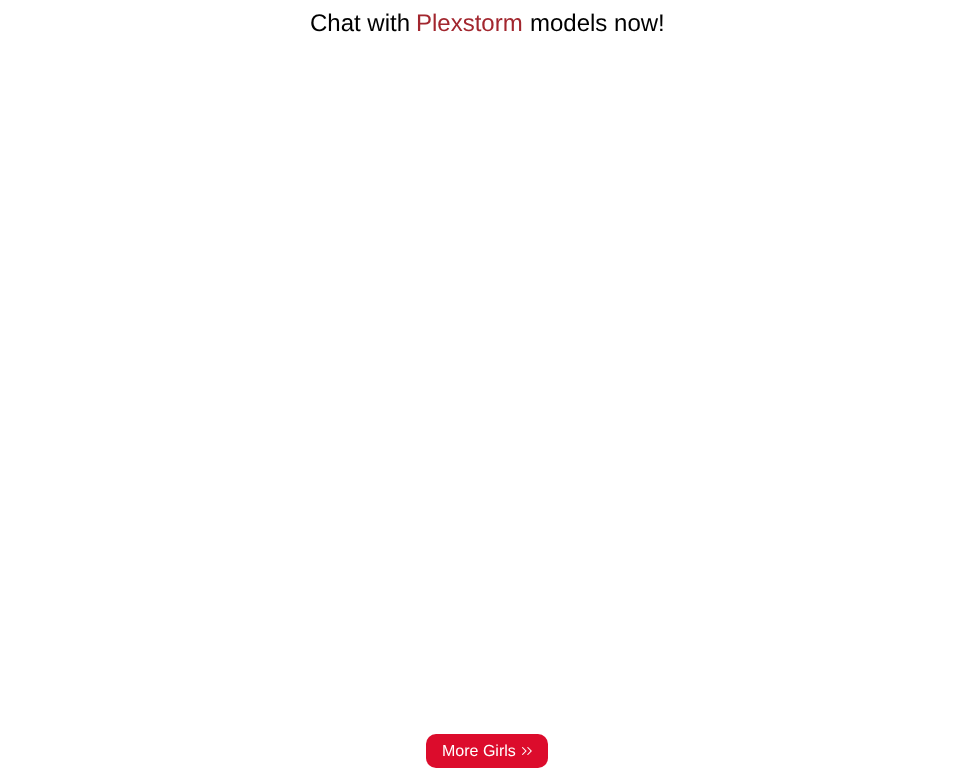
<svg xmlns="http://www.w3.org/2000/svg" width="974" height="772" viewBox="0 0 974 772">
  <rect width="100%" height="100%" fill="#fff"/>
  <rect x="426" y="734" width="122" height="34" rx="10" fill="#dc0c2c"/>
  <image x="522" y="747" width="10" height="8" href="img/1.png"/>
  <text x="310" y="31" font-family="Liberation Sans" font-size="24" fill="#000">Chat with</text>
  <text x="416" y="31" font-family="Liberation Sans" font-size="24" fill="#a2262e">Plexstorm</text>
  <text x="530" y="31" font-family="Liberation Sans" font-size="24" fill="#000">models now!</text>
  <text x="442" y="756" font-family="Liberation Sans" font-size="16" fill="#fff">More Girls</text>
</svg>
